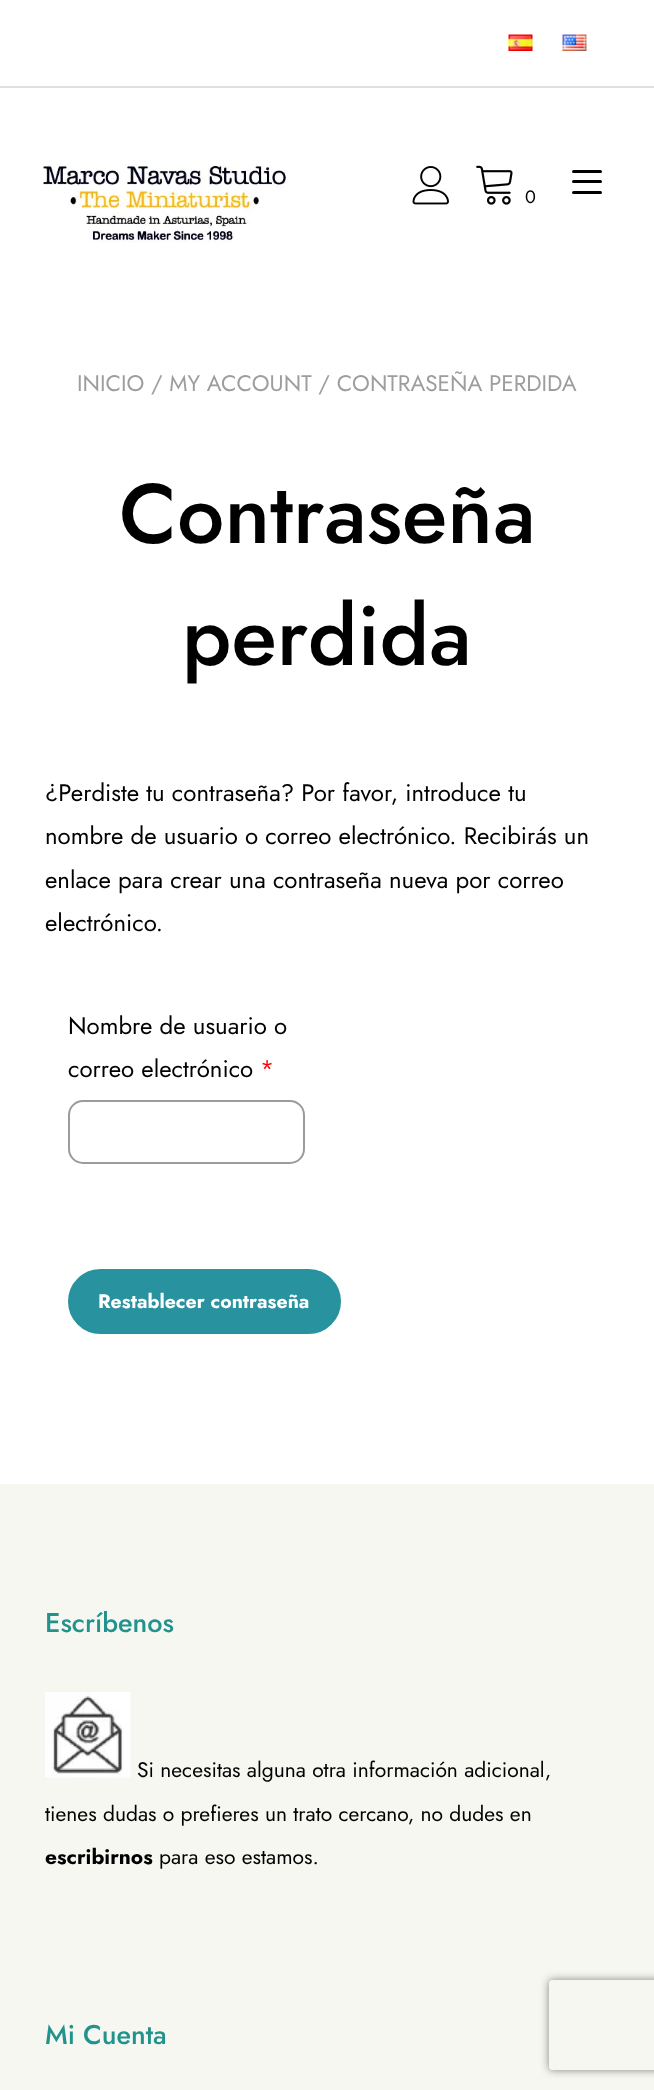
<svg xmlns="http://www.w3.org/2000/svg" width="654" height="2090" viewBox="0 0 654 2090">
  <defs>
    <clipPath id="clip1"><path d="M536 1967H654V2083H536ZM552 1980H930C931.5 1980 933 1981.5 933 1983V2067C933 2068.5 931.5 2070 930 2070H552C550.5 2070 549 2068.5 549 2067V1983C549 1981.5 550.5 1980 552 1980Z" clip-rule="evenodd"/></clipPath>
  </defs>
  <rect width="100%" height="100%" fill="#fff"/>
  <path d="M0 86h654v2H0z" fill="#e0e0e0"/>
  <image x="508" y="34" width="25" height="17" href="img/1.png"/>
  <image x="562" y="34" width="25" height="17" href="img/2.png"/>
  <image x="43" y="164" width="244" height="79" href="img/3.png"/>
  <rect x="572" y="170" width="30" height="3" rx="1.5" fill="#000"/>
  <rect x="572" y="180" width="30" height="3" rx="1.5" fill="#000"/>
  <rect x="572" y="191" width="30" height="3" rx="1.5" fill="#000"/>
  <image x="412" y="166" width="37" height="39" href="img/4.png"/>
  <image x="476" y="165" width="37" height="40" href="img/5.png"/>
  <rect x="69" y="1101" width="235" height="62" rx="14" fill="none" stroke="#9b9b9b" stroke-width="2"/>
  <rect x="69" y="1270" width="271" height="63" rx="31.5" fill="#28929e" stroke="#28929e" stroke-width="2"/>
  <path d="M0 1484h654v606H0z" fill="#f7f7f2"/>
  <image x="45" y="1692" width="86" height="86" href="img/6.png"/>
  <g clip-path="url(#clip1)">
    <rect x="549" y="1980" width="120" height="90" rx="3" fill="#808080" filter="blur(4px)"/>
  </g>
  <text x="525" y="203" font-family="Jost" font-size="18" fill="#000">0</text>
  <text x="77" y="391" font-family="Jost" font-size="22.5" fill="#9d9d9d">INICIO / MY ACCOUNT / CONTRASEÑA PERDIDA</text>
  <g font-family="Jost" font-size="84" font-weight="500" fill="#000">
    <text x="119" y="543">Contraseña</text>
    <text x="182" y="665">perdida</text>
  </g>
  <g font-family="Jost" font-size="24" fill="#000">
    <text x="45" y="801">¿Perdiste tu contraseña? Por favor, introduce tu</text>
    <text x="45" y="844">nombre de usuario o correo electrónico. Recibirás un</text>
    <text x="45" y="888">enlace para crear una contraseña nueva por correo</text>
    <text x="45" y="931">electrónico.</text>
    <text x="68" y="1034">Nombre de usuario o</text>
    <text x="68" y="1077">correo electrónico</text>
  </g>
  <text x="260" y="1077" font-family="Jost" font-size="24" fill="#f00">*</text>
  <text x="98" y="1308" font-family="Jost" font-size="19.5" font-weight="bold" fill="#fff">Restablecer contraseña</text>
  <text x="45" y="1632" font-family="Jost" font-size="27" font-weight="500" fill="#22938c">Escríbenos</text>
  <g font-family="Jost" font-size="21" fill="#000">
    <text x="137" y="1777">Si necesitas alguna otra información adicional,</text>
    <text x="45" y="1821">tienes dudas o prefieres un trato cercano, no dudes en</text>
  </g>
  <text x="45" y="1864" font-family="Jost" font-size="21" font-weight="bold" fill="#000">escribirnos</text>
  <text x="159" y="1864" font-family="Jost" font-size="21" fill="#000">para eso estamos.</text>
  <text x="45" y="2044" font-family="Jost" font-size="27" font-weight="500" fill="#22938c">Mi Cuenta</text>
</svg>
